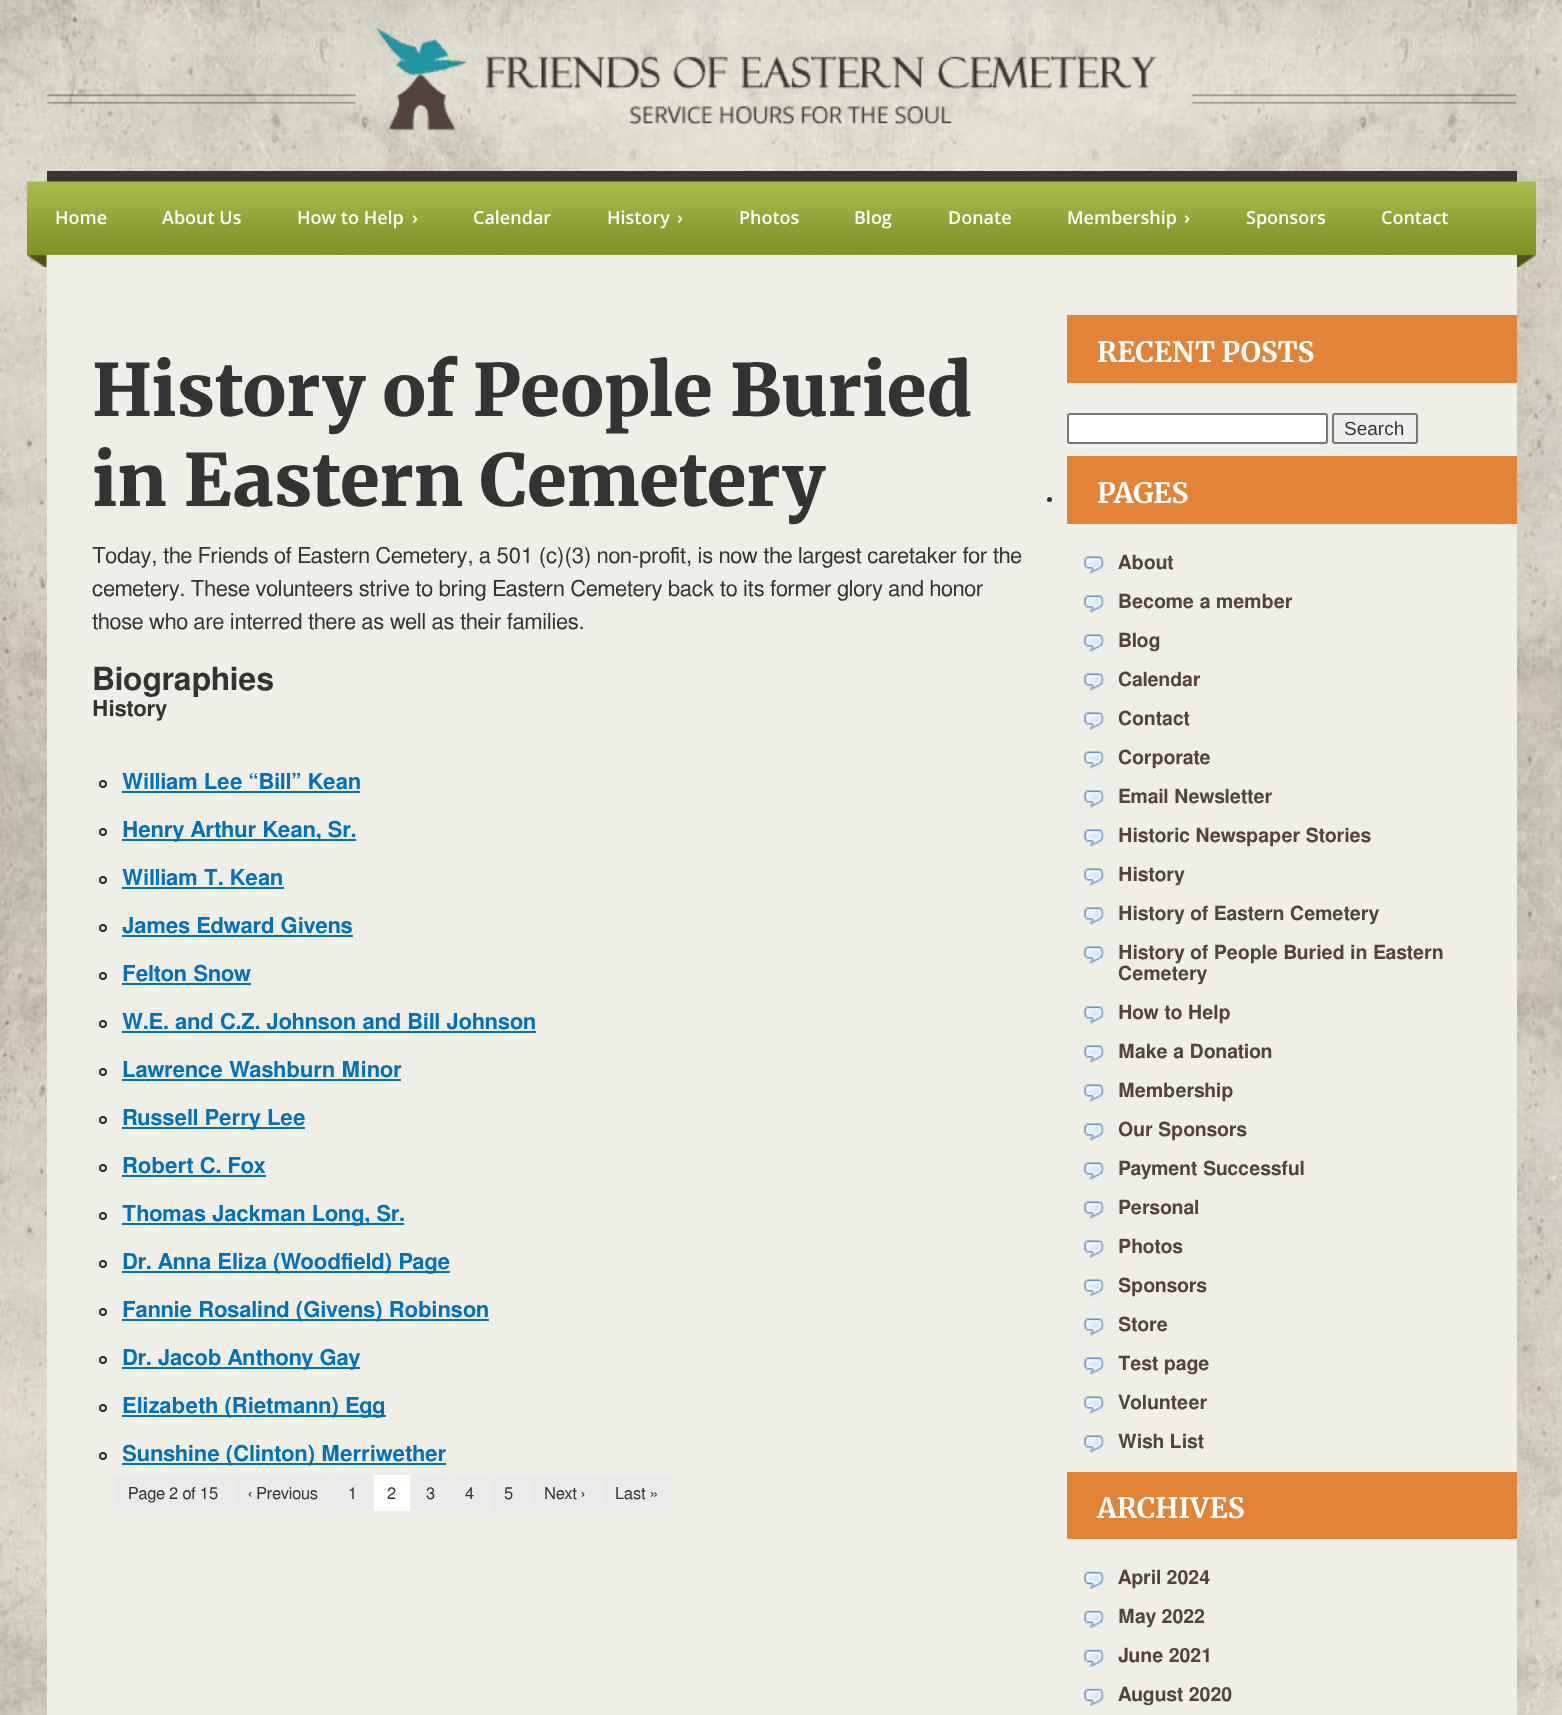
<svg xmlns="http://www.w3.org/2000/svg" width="1562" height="1715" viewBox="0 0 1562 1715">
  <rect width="100%" height="100%" fill="#fff"/>
  <image x="0" y="0" width="1562" height="1715" href="img/1.png"/>
  <path d="M47 171h1470v11H47z" fill="#3e3332"/>
  <image x="46" y="28" width="1471" height="103" href="img/2.png"/>
  <image x="27" y="181" width="1509" height="86" href="img/3.png"/>
  <path d="M47 255h1470v1460H47z" fill="#efefe7"/>
  <circle cx="103" cy="784" r="3" fill="none" stroke="#333" stroke-width="2"/>
  <path d="M122 791h238v2H122z" fill="#0072bb"/>
  <circle cx="103" cy="832" r="3" fill="none" stroke="#333" stroke-width="2"/>
  <path d="M122 839h234v2H122z" fill="#0072bb"/>
  <circle cx="103" cy="880" r="3" fill="none" stroke="#333" stroke-width="2"/>
  <path d="M122 887h162v2H122z" fill="#0072bb"/>
  <circle cx="103" cy="928" r="3" fill="none" stroke="#333" stroke-width="2"/>
  <path d="M122 935h231v2H122z" fill="#0072bb"/>
  <circle cx="103" cy="976" r="3" fill="none" stroke="#333" stroke-width="2"/>
  <path d="M122 983h129v2H122z" fill="#0072bb"/>
  <circle cx="103" cy="1024" r="3" fill="none" stroke="#333" stroke-width="2"/>
  <path d="M122 1031h414v2H122z" fill="#0072bb"/>
  <circle cx="103" cy="1072" r="3" fill="none" stroke="#333" stroke-width="2"/>
  <path d="M122 1079h279v2H122z" fill="#0072bb"/>
  <circle cx="103" cy="1120" r="3" fill="none" stroke="#333" stroke-width="2"/>
  <path d="M122 1127h183v2H122z" fill="#0072bb"/>
  <circle cx="103" cy="1168" r="3" fill="none" stroke="#333" stroke-width="2"/>
  <path d="M122 1175h144v2H122z" fill="#0072bb"/>
  <circle cx="103" cy="1216" r="3" fill="none" stroke="#333" stroke-width="2"/>
  <path d="M122 1223h282v2H122z" fill="#0072bb"/>
  <circle cx="103" cy="1264" r="3" fill="none" stroke="#333" stroke-width="2"/>
  <path d="M122 1271h328v2H122z" fill="#0072bb"/>
  <circle cx="103" cy="1312" r="3" fill="none" stroke="#333" stroke-width="2"/>
  <path d="M122 1319h367v2H122z" fill="#0072bb"/>
  <circle cx="103" cy="1360" r="3" fill="none" stroke="#333" stroke-width="2"/>
  <path d="M122 1367h238v2H122z" fill="#0072bb"/>
  <circle cx="103" cy="1408" r="3" fill="none" stroke="#333" stroke-width="2"/>
  <path d="M122 1415h264v2H122z" fill="#0072bb"/>
  <circle cx="103" cy="1456" r="3" fill="none" stroke="#333" stroke-width="2"/>
  <path d="M122 1463h324v2H122z" fill="#0072bb"/>
  <path d="M114 1475h117v36H114z" fill="#ebebeb"/>
  <path d="M234 1475h98v36H234z" fill="#ebebeb"/>
  <path d="M335 1475h36v36H335z" fill="#ebebeb"/>
  <path d="M374 1475h36v36H374z" fill="#fff"/>
  <path d="M413 1475h36v36H413z" fill="#ebebeb"/>
  <path d="M452 1475h36v36H452z" fill="#ebebeb"/>
  <path d="M491 1475h36v36H491z" fill="#ebebeb"/>
  <path d="M530 1475h69v36H530z" fill="#ebebeb"/>
  <path d="M602 1475h69v36H602z" fill="#ebebeb"/>
  <path d="M1067 315h450v68H1067z" fill="#e38337"/>
  <rect x="1068" y="414" width="259" height="29" rx="2" fill="#fff" stroke="#767676" stroke-width="2"/>
  <rect x="1333" y="414" width="84" height="29" rx="2" fill="#efefef" stroke="#767676" stroke-width="2"/>
  <circle cx="1049.5" cy="499.5" r="2.5" fill="#333"/>
  <path d="M1067 456h450v68H1067z" fill="#e38337"/>
  <image x="1083" y="556" width="22" height="18" href="img/4.png"/>
  <image x="1083" y="595" width="22" height="18" href="img/4.png"/>
  <image x="1083" y="634" width="22" height="18" href="img/4.png"/>
  <image x="1083" y="673" width="22" height="18" href="img/4.png"/>
  <image x="1083" y="712" width="22" height="18" href="img/4.png"/>
  <image x="1083" y="751" width="22" height="18" href="img/4.png"/>
  <image x="1083" y="790" width="22" height="18" href="img/4.png"/>
  <image x="1083" y="829" width="22" height="18" href="img/4.png"/>
  <image x="1083" y="868" width="22" height="18" href="img/4.png"/>
  <image x="1083" y="907" width="22" height="18" href="img/4.png"/>
  <image x="1083" y="946" width="22" height="18" href="img/4.png"/>
  <image x="1083" y="1006" width="22" height="18" href="img/4.png"/>
  <image x="1083" y="1045" width="22" height="18" href="img/4.png"/>
  <image x="1083" y="1084" width="22" height="18" href="img/4.png"/>
  <image x="1083" y="1123" width="22" height="18" href="img/4.png"/>
  <image x="1083" y="1162" width="22" height="18" href="img/4.png"/>
  <image x="1083" y="1201" width="22" height="18" href="img/4.png"/>
  <image x="1083" y="1240" width="22" height="18" href="img/4.png"/>
  <image x="1083" y="1279" width="22" height="18" href="img/4.png"/>
  <image x="1083" y="1318" width="22" height="18" href="img/4.png"/>
  <image x="1083" y="1357" width="22" height="18" href="img/4.png"/>
  <image x="1083" y="1396" width="22" height="18" href="img/4.png"/>
  <image x="1083" y="1435" width="22" height="18" href="img/4.png"/>
  <path d="M1067 1472h450v67H1067z" fill="#e38337"/>
  <image x="1083" y="1571" width="22" height="18" href="img/5.png"/>
  <image x="1083" y="1610" width="22" height="18" href="img/5.png"/>
  <image x="1083" y="1649" width="22" height="18" href="img/5.png"/>
  <image x="1083" y="1688" width="22" height="18" href="img/5.png"/>
  <g font-family="Open Sans" font-size="18" font-weight="600" fill="#fff">
    <text x="55" y="224">Home</text>
    <text x="162" y="224">About Us</text>
    <text x="297" y="224">How to Help</text>
    <text x="412" y="224">›</text>
    <text x="473" y="224">Calendar</text>
    <text x="607" y="224">History</text>
    <text x="677" y="224">›</text>
    <text x="739" y="224">Photos</text>
    <text x="854" y="224">Blog</text>
    <text x="948" y="224">Donate</text>
    <text x="1067" y="224">Membership</text>
    <text x="1184" y="224">›</text>
    <text x="1246" y="224">Sponsors</text>
    <text x="1381" y="224">Contact</text>
  </g>
  <g font-family="Merriweather" font-size="72" font-weight="900" fill="#333">
    <text x="92" y="416">History of People Buried</text>
    <text x="92" y="506">in Eastern Cemetery</text>
  </g>
  <g font-family="FreeSans" font-size="22" fill="#333">
    <text x="92" y="563">Today, the Friends of Eastern Cemetery, a 501 (c)(3) non-profit, is now the largest caretaker for the</text>
    <text x="92" y="596">cemetery. These volunteers strive to bring Eastern Cemetery back to its former glory and honor</text>
    <text x="92" y="629">those who are interred there as well as their families.</text>
  </g>
  <text x="92" y="690" font-family="FreeSans" font-size="32" font-weight="600" fill="#333">Biographies</text>
  <text x="92" y="716" font-family="FreeSans" font-size="22" font-weight="600" fill="#333">History</text>
  <g font-family="FreeSans" font-size="22" font-weight="600" fill="#0072bb">
    <text x="122" y="789">William Lee “Bill” Kean</text>
    <text x="122" y="837">Henry Arthur Kean, Sr.</text>
    <text x="122" y="885">William T. Kean</text>
    <text x="122" y="933">James Edward Givens</text>
    <text x="122" y="981">Felton Snow</text>
    <text x="122" y="1029">W.E. and C.Z. Johnson and Bill Johnson</text>
    <text x="122" y="1077">Lawrence Washburn Minor</text>
    <text x="122" y="1125">Russell Perry Lee</text>
    <text x="122" y="1173">Robert C. Fox</text>
    <text x="122" y="1221">Thomas Jackman Long, Sr.</text>
    <text x="122" y="1269">Dr. Anna Eliza (Woodfield) Page</text>
    <text x="122" y="1317">Fannie Rosalind (Givens) Robinson</text>
    <text x="122" y="1365">Dr. Jacob Anthony Gay</text>
    <text x="122" y="1413">Elizabeth (Rietmann) Egg</text>
    <text x="122" y="1461">Sunshine (Clinton) Merriwether</text>
  </g>
  <g font-family="FreeSans" font-size="16.5" fill="#333">
    <text x="128" y="1499">Page 2 of 15</text>
    <text x="248" y="1499">‹ Previous</text>
    <text x="348" y="1499">1</text>
    <text x="387" y="1499">2</text>
    <text x="426" y="1499">3</text>
    <text x="465" y="1499">4</text>
    <text x="504" y="1499">5</text>
    <text x="544" y="1499">Next ›</text>
    <text x="615" y="1499">Last »</text>
  </g>
  <text x="1097" y="362" font-family="Merriweather" font-size="28" font-weight="bold" fill="#fff">RECENT POSTS</text>
  <text x="1344" y="435" font-family="Liberation Sans" font-size="19" fill="#333">Search</text>
  <text x="1097" y="503" font-family="Merriweather" font-size="28" font-weight="bold" fill="#fff">PAGES</text>
  <g font-family="FreeSans" font-size="19.5" font-weight="600" fill="#554240">
    <text x="1118" y="569">About</text>
    <text x="1118" y="608">Become a member</text>
    <text x="1118" y="647">Blog</text>
    <text x="1118" y="686">Calendar</text>
    <text x="1118" y="725">Contact</text>
    <text x="1118" y="764">Corporate</text>
    <text x="1118" y="803">Email Newsletter</text>
    <text x="1118" y="842">Historic Newspaper Stories</text>
    <text x="1118" y="881">History</text>
    <text x="1118" y="920">History of Eastern Cemetery</text>
    <text x="1118" y="959">History of People Buried in Eastern</text>
    <text x="1118" y="980">Cemetery</text>
    <text x="1118" y="1019">How to Help</text>
    <text x="1118" y="1058">Make a Donation</text>
    <text x="1118" y="1097">Membership</text>
    <text x="1118" y="1136">Our Sponsors</text>
    <text x="1118" y="1175">Payment Successful</text>
    <text x="1118" y="1214">Personal</text>
    <text x="1118" y="1253">Photos</text>
    <text x="1118" y="1292">Sponsors</text>
    <text x="1118" y="1331">Store</text>
    <text x="1118" y="1370">Test page</text>
    <text x="1118" y="1409">Volunteer</text>
    <text x="1118" y="1448">Wish List</text>
  </g>
  <text x="1097" y="1518" font-family="Merriweather" font-size="28" font-weight="bold" fill="#fff">ARCHIVES</text>
  <g font-family="FreeSans" font-size="19.5" font-weight="600" fill="#554240">
    <text x="1118" y="1584">April 2024</text>
    <text x="1118" y="1623">May 2022</text>
    <text x="1118" y="1662">June 2021</text>
    <text x="1118" y="1701">August 2020</text>
  </g>
</svg>
